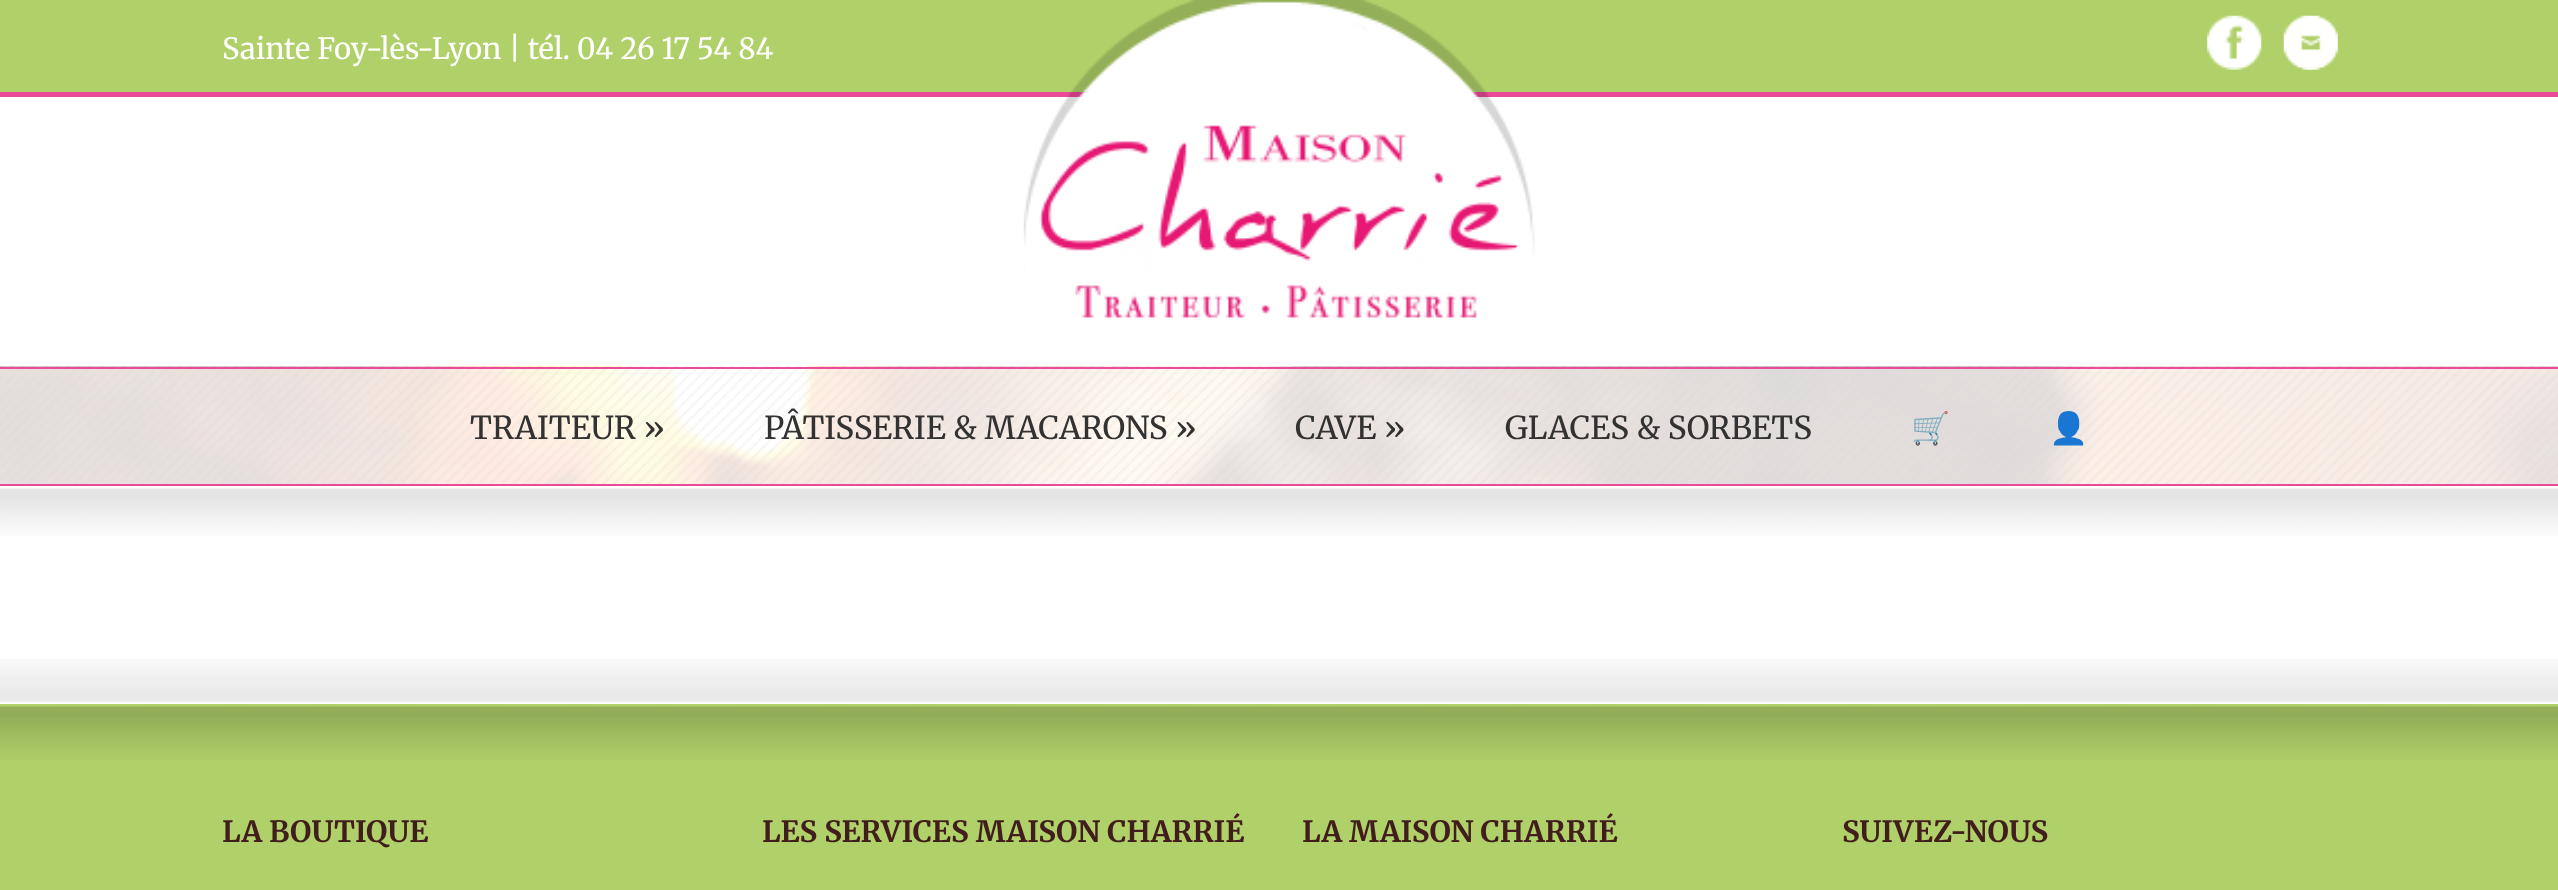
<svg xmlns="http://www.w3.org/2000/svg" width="2558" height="890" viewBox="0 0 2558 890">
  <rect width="100%" height="100%" fill="#fff"/>
  <path d="M0 0h2558v92H0z" fill="#b0d169"/>
  <image x="2207" y="15" width="55" height="55" href="img/1.png"/>
  <image x="2283" y="15" width="55" height="55" href="img/2.png"/>
  <path d="M0 92h2558v5H0z" fill="#eb4b98"/>
  <image x="1023" y="0" width="512" height="318" href="img/3.png"/>
  <image x="0" y="366" width="2558" height="118" href="img/4.png"/>
  <image x="0" y="366" width="2558" height="118" href="img/5.png"/>
  <path d="M0 367h2558v2H0z" fill="#eb4b98"/>
  <path d="M0 484h2558v2H0z" fill="#eb4b98"/>
  <image x="0" y="488" width="2558" height="48" href="img/6.png"/>
  <image x="0" y="659" width="2558" height="44" href="img/7.png"/>
  <path d="M0 704h2558v186H0z" fill="#b0d169"/>
  <image x="0" y="706" width="2558" height="54" href="img/8.png"/>
  <text x="222" y="59" font-family="Merriweather" font-size="29.25" fill="#fff">Sainte Foy-lès-Lyon | tél. 04 26 17 54 84</text>
  <g font-family="Merriweather" font-size="31.5" fill="#323232">
    <text x="470" y="439">TRAITEUR »</text>
    <text x="764" y="439">PÂTISSERIE &amp; MACARONS »</text>
    <text x="1295" y="439">CAVE »</text>
    <text x="1505" y="439">GLACES &amp; SORBETS</text>
  </g>
  <g font-family="Noto Color Emoji" font-size="31.5" fill="#323232">
    <text x="1911" y="439">🛒</text>
    <text x="2049" y="439">👤</text>
  </g>
  <g font-family="Merriweather" font-size="29.25" font-weight="bold" fill="#411d1d">
    <text x="222" y="842">LA BOUTIQUE</text>
    <text x="762" y="842">LES SERVICES MAISON CHARRIÉ</text>
    <text x="1302" y="842">LA MAISON CHARRIÉ</text>
    <text x="1842" y="842">SUIVEZ-NOUS</text>
  </g>
</svg>
